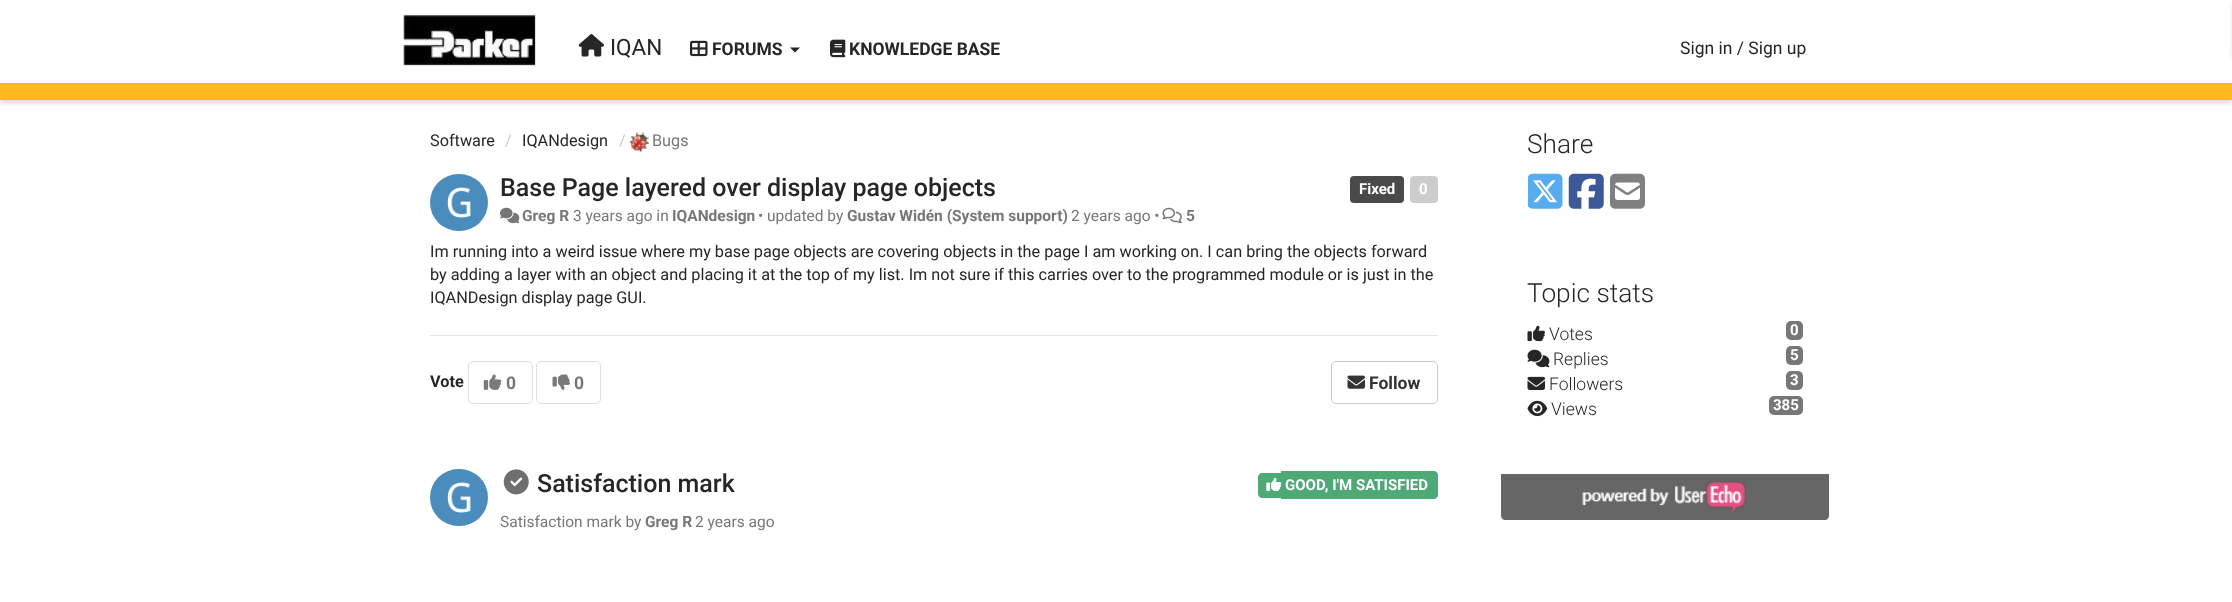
<svg xmlns="http://www.w3.org/2000/svg" width="2232" height="602" viewBox="0 0 2232 602">
  <defs>
    <clipPath id="clip1"><path d="M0 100h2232v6H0z"/></clipPath>
  </defs>
  <rect width="100%" height="100%" fill="#fff"/>
  <g clip-path="url(#clip1)">
    <path d="M0 3h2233v100H0z" fill="#00000026" filter="blur(2.5px)"/>
  </g>
  <path d="M0 83h2232v17H0z" fill="#ffb91d"/>
  <image x="403" y="14" width="133" height="52" href="img/1.png"/>
  <image x="578" y="34" width="26" height="23" href="img/2.png"/>
  <image x="690" y="40" width="18" height="17" href="img/3.png"/>
  <path d="M790 47.5H800L795 52.5Z" fill="#262626"/>
  <image x="830" y="39" width="16" height="19" href="img/4.png"/>
  <path d="M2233 3h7v55H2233z" fill="#00000026" filter="blur(2.5px)"/>
  <image x="629" y="132" width="20" height="21" href="img/5.png"/>
  <rect x="430" y="174" width="58" height="57" rx="28.5" fill="#4a8dbc"/>
  <image x="447" y="187" width="24" height="31" href="img/6.png"/>
  <rect x="1350" y="176" width="54" height="27" rx="4" fill="#4a4a4a"/>
  <rect x="1410" y="176" width="28" height="27" rx="4" fill="#ccc"/>
  <image x="500" y="207" width="20" height="17" href="img/7.png"/>
  <image x="1162" y="207" width="20" height="17" href="img/8.png"/>
  <path d="M430 335h1008v1H430z" fill="#e5e5e5"/>
  <rect x="468.5" y="361.5" width="64" height="42" rx="4.5" fill="none" stroke="#dedede"/>
  <image x="483" y="374" width="19" height="16" href="img/9.png"/>
  <rect x="536.5" y="361.5" width="64" height="42" rx="4.5" fill="none" stroke="#dedede"/>
  <image x="552" y="374" width="18" height="16" href="img/10.png"/>
  <rect x="1331.5" y="361.5" width="106" height="42" rx="4.5" fill="none" stroke="#ccc"/>
  <image x="1347" y="375" width="18" height="14" href="img/11.png"/>
  <rect x="430" y="469" width="58" height="57" rx="28.5" fill="#4a8dbc"/>
  <image x="447" y="482" width="24" height="31" href="img/6.png"/>
  <image x="503" y="469" width="26" height="26" href="img/12.png"/>
  <path d="M1262 473H1281V498H1262C1260 498 1258 496 1258 494V477C1258 475 1260 473 1262 473Z" fill="#4daa77"/>
  <path d="M1281 471H1434C1436 471 1438 473 1438 475V495C1438 497 1436 499 1434 499H1281Z" fill="#4daa77"/>
  <image x="1266" y="477" width="16" height="14" href="img/13.png"/>
  <image x="1528" y="173" width="35" height="36" href="img/14.png"/>
  <image x="1568" y="173" width="36" height="36" href="img/15.png"/>
  <image x="1610" y="173" width="35" height="36" href="img/16.png"/>
  <image x="1527" y="325" width="18" height="17" href="img/17.png"/>
  <rect x="1786" y="321" width="17" height="19" rx="5" fill="#777"/>
  <image x="1527" y="349" width="23" height="19" href="img/18.png"/>
  <rect x="1786" y="346" width="17" height="19" rx="5" fill="#777"/>
  <image x="1527" y="376" width="18" height="14" href="img/19.png"/>
  <rect x="1786" y="371" width="17" height="19" rx="5" fill="#777"/>
  <image x="1527" y="400" width="21" height="17" href="img/20.png"/>
  <rect x="1769" y="396" width="34" height="19" rx="5" fill="#777"/>
  <path d="M1501 474H1829V516C1829 518 1827 520 1825 520H1505C1503 520 1501 518 1501 516Z" fill="#666"/>
  <image x="1582" y="481" width="164" height="32" href="img/21.png"/>
  <text x="610" y="55" font-family="Roboto" font-size="22.5" fill="#262626">IQAN</text>
  <g font-family="Roboto" font-size="17.5" font-weight="bold" fill="#262626">
    <text x="712" y="55">FORUMS</text>
    <text x="849" y="55">KNOWLEDGE BASE</text>
  </g>
  <text x="1680" y="54" font-family="Roboto" font-size="17.5" fill="#262626">Sign in / Sign up</text>
  <text x="430" y="146" font-family="Roboto" font-size="16.25" fill="#262626">Software</text>
  <text x="505" y="146" font-family="Roboto" font-size="16.25" fill="#ccc">/</text>
  <text x="522" y="146" font-family="Roboto" font-size="16.25" fill="#262626">IQANdesign</text>
  <text x="619" y="146" font-family="Roboto" font-size="16.25" fill="#ccc">/</text>
  <text x="652" y="146" font-family="Roboto" font-size="16.25" fill="#777">Bugs</text>
  <text x="500" y="196" font-family="Roboto" font-size="25" font-weight="500" fill="#262626">Base Page layered over display page objects</text>
  <g font-family="Roboto" font-size="15" font-weight="bold" fill="#fff">
    <text x="1359" y="194">Fixed</text>
    <text x="1419" y="194">0</text>
  </g>
  <text x="522" y="221" font-family="Roboto" font-size="15.5" font-weight="bold" fill="#777">Greg R</text>
  <text x="573" y="221" font-family="Roboto" font-size="15.5" fill="#777">3 years ago in</text>
  <text x="672" y="221" font-family="Roboto" font-size="15.5" font-weight="bold" fill="#777">IQANdesign</text>
  <text x="758" y="221" font-family="Roboto" font-size="15.5" fill="#777">• updated by</text>
  <text x="847" y="221" font-family="Roboto" font-size="15.5" font-weight="bold" fill="#777">Gustav Widén (System support)</text>
  <text x="1071" y="221" font-family="Roboto" font-size="15.5" fill="#777">2 years ago •</text>
  <text x="1186" y="221" font-family="Roboto" font-size="15.5" font-weight="bold" fill="#777">5</text>
  <g font-family="Roboto" font-size="16.25" fill="#262626">
    <text x="430" y="257">Im running into a weird issue where my base page objects are covering objects in the page I am working on. I can bring the objects forward</text>
    <text x="430" y="280">by adding a layer with an object and placing it at the top of my list. Im not sure if this carries over to the programmed module or is just in the</text>
    <text x="430" y="303">IQANDesign display page GUI.</text>
  </g>
  <text x="430" y="387" font-family="Roboto" font-size="16.25" font-weight="bold" fill="#262626">Vote</text>
  <g font-family="Roboto" font-size="17.5" font-weight="bold" fill="#777">
    <text x="506" y="389">0</text>
    <text x="574" y="389">0</text>
  </g>
  <text x="1369" y="389" font-family="Roboto" font-size="17.5" font-weight="bold" fill="#333">Follow</text>
  <text x="537" y="492" font-family="Roboto" font-size="25" font-weight="500" fill="#262626">Satisfaction mark</text>
  <text x="1285" y="490" font-family="Roboto" font-size="15" font-weight="bold" fill="#fff">GOOD, I'M SATISFIED</text>
  <text x="500" y="527" font-family="Roboto" font-size="15.5" fill="#777">Satisfaction mark by</text>
  <text x="645" y="527" font-family="Roboto" font-size="15.5" font-weight="bold" fill="#777">Greg R</text>
  <text x="695" y="527" font-family="Roboto" font-size="15.5" fill="#777">2 years ago</text>
  <g font-family="Roboto" font-size="26.25" font-weight="300" fill="#262626">
    <text x="1527" y="153">Share</text>
    <text x="1527" y="302">Topic stats</text>
  </g>
  <text x="1549" y="340" font-family="Roboto" font-size="17.5" font-weight="300" fill="#262626">Votes</text>
  <text x="1790" y="335" font-family="Roboto" font-size="15" font-weight="bold" fill="#fff">0</text>
  <text x="1553" y="365" font-family="Roboto" font-size="17.5" font-weight="300" fill="#262626">Replies</text>
  <text x="1790" y="360" font-family="Roboto" font-size="15" font-weight="bold" fill="#fff">5</text>
  <text x="1549" y="390" font-family="Roboto" font-size="17.5" font-weight="300" fill="#262626">Followers</text>
  <text x="1790" y="385" font-family="Roboto" font-size="15" font-weight="bold" fill="#fff">3</text>
  <text x="1551" y="415" font-family="Roboto" font-size="17.5" font-weight="300" fill="#262626">Views</text>
  <text x="1773" y="410" font-family="Roboto" font-size="15" font-weight="bold" fill="#fff">385</text>
</svg>
